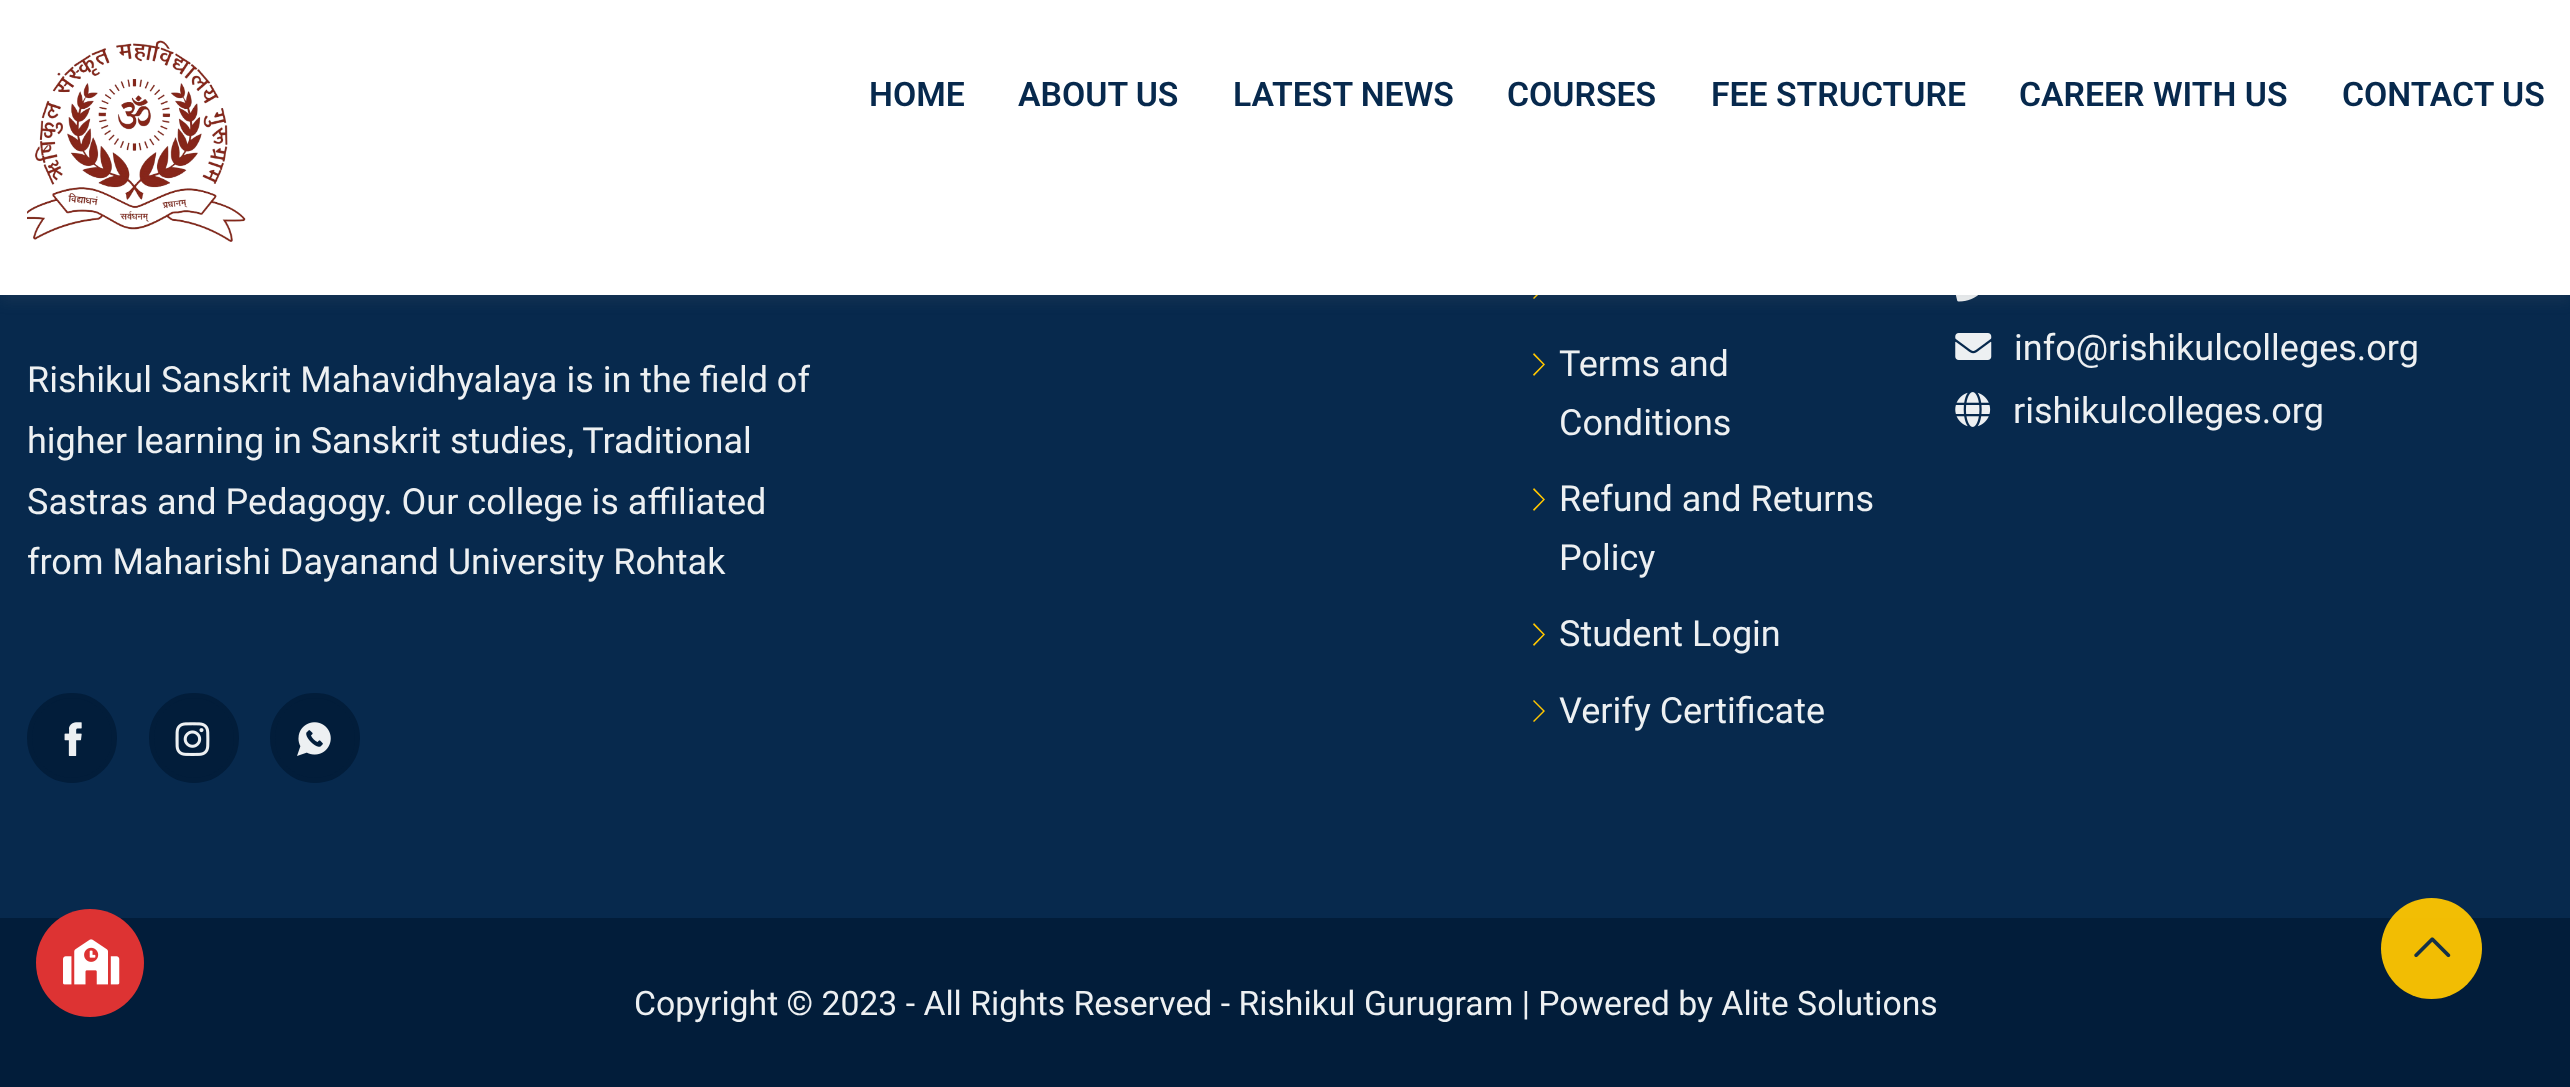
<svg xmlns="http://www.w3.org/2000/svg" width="2570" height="1087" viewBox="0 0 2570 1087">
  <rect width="100%" height="100%" fill="#07294d"/>
  <path d="M1534 277L1533 278L1543 288L1533 298L1534 299L1545 288Z" fill="#ffc600"/>
  <image x="1955" y="295" width="23" height="7" href="img/5.png"/>
  <path d="M0 7h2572v295H0z" fill="#8080801a" filter="blur(7px)"/>
  <path d="M0 0h2570v295H0z" fill="#fff"/>
  <image x="27" y="40" width="219" height="202" href="img/1.png"/>
  <circle cx="72" cy="738" r="42.5" fill="#021d3a" stroke="#021d3a" stroke-width="5"/>
  <image x="64" y="722" width="18" height="34" href="img/2.png"/>
  <circle cx="194" cy="738" r="42.5" fill="#021d3a" stroke="#021d3a" stroke-width="5"/>
  <image x="175" y="722" width="35" height="34" href="img/3.png"/>
  <circle cx="315" cy="738" r="42.5" fill="#021d3a" stroke="#021d3a" stroke-width="5"/>
  <image x="297" y="722" width="34" height="34" href="img/4.png"/>
  <path d="M1534 353L1533 354.5L1543 364.5L1533 374.5L1534 376L1545 364.5Z" fill="#ffc600"/>
  <path d="M1534 488L1533 489.5L1543 499.5L1533 509.5L1534 511L1545 499.5Z" fill="#ffc600"/>
  <path d="M1534 623L1533 624.5L1543 634.5L1533 644.5L1534 646L1545 634.5Z" fill="#ffc600"/>
  <path d="M1534 700L1533 701L1543 711L1533 721L1534 722L1545 711Z" fill="#ffc600"/>
  <image x="1955" y="333" width="37" height="27" href="img/6.png"/>
  <image x="1955" y="392" width="36" height="35" href="img/7.png"/>
  <path d="M0 918h2570v169H0z" fill="#021d3a"/>
  <circle cx="90" cy="963" r="54" fill="#d33"/>
  <image x="63" y="939" width="57" height="46" href="img/8.png"/>
  <circle cx="2431.5" cy="948.5" r="50.5" fill="#ffc600f2"/>
  <image x="2414" y="937" width="37" height="21" href="img/9.png"/>
  <g font-family="Roboto" font-size="33.75" font-weight="600" fill="#07294d">
    <text x="869" y="106">HOME</text>
    <text x="1018" y="106">ABOUT US</text>
    <text x="1233" y="106">LATEST NEWS</text>
    <text x="1507" y="106">COURSES</text>
    <text x="1711" y="106">FEE STRUCTURE</text>
    <text x="2019" y="106">CAREER WITH US</text>
    <text x="2342" y="106">CONTACT US</text>
  </g>
  <g font-family="Roboto" font-size="36" fill="#edf0f2">
    <text x="27" y="392">Rishikul Sanskrit Mahavidhyalaya is in the field of</text>
    <text x="27" y="453">higher learning in Sanskrit studies, Traditional</text>
    <text x="27" y="514">Sastras and Pedagogy. Our college is affiliated</text>
    <text x="27" y="574">from Maharishi Dayanand University Rohtak</text>
    <text x="1559" y="376">Terms and</text>
    <text x="1559" y="435">Conditions</text>
    <text x="1559" y="511">Refund and Returns</text>
    <text x="1559" y="570">Policy</text>
    <text x="1559" y="646">Student Login</text>
    <text x="1559" y="723">Verify Certificate</text>
    <text x="2014" y="360">info@rishikulcolleges.org</text>
    <text x="2013" y="423">rishikulcolleges.org</text>
  </g>
  <text x="634" y="1015" font-family="Roboto" font-size="33.75" fill="#edf0f2">Copyright © 2023 - All Rights Reserved - Rishikul Gurugram | Powered by Alite Solutions</text>
</svg>
